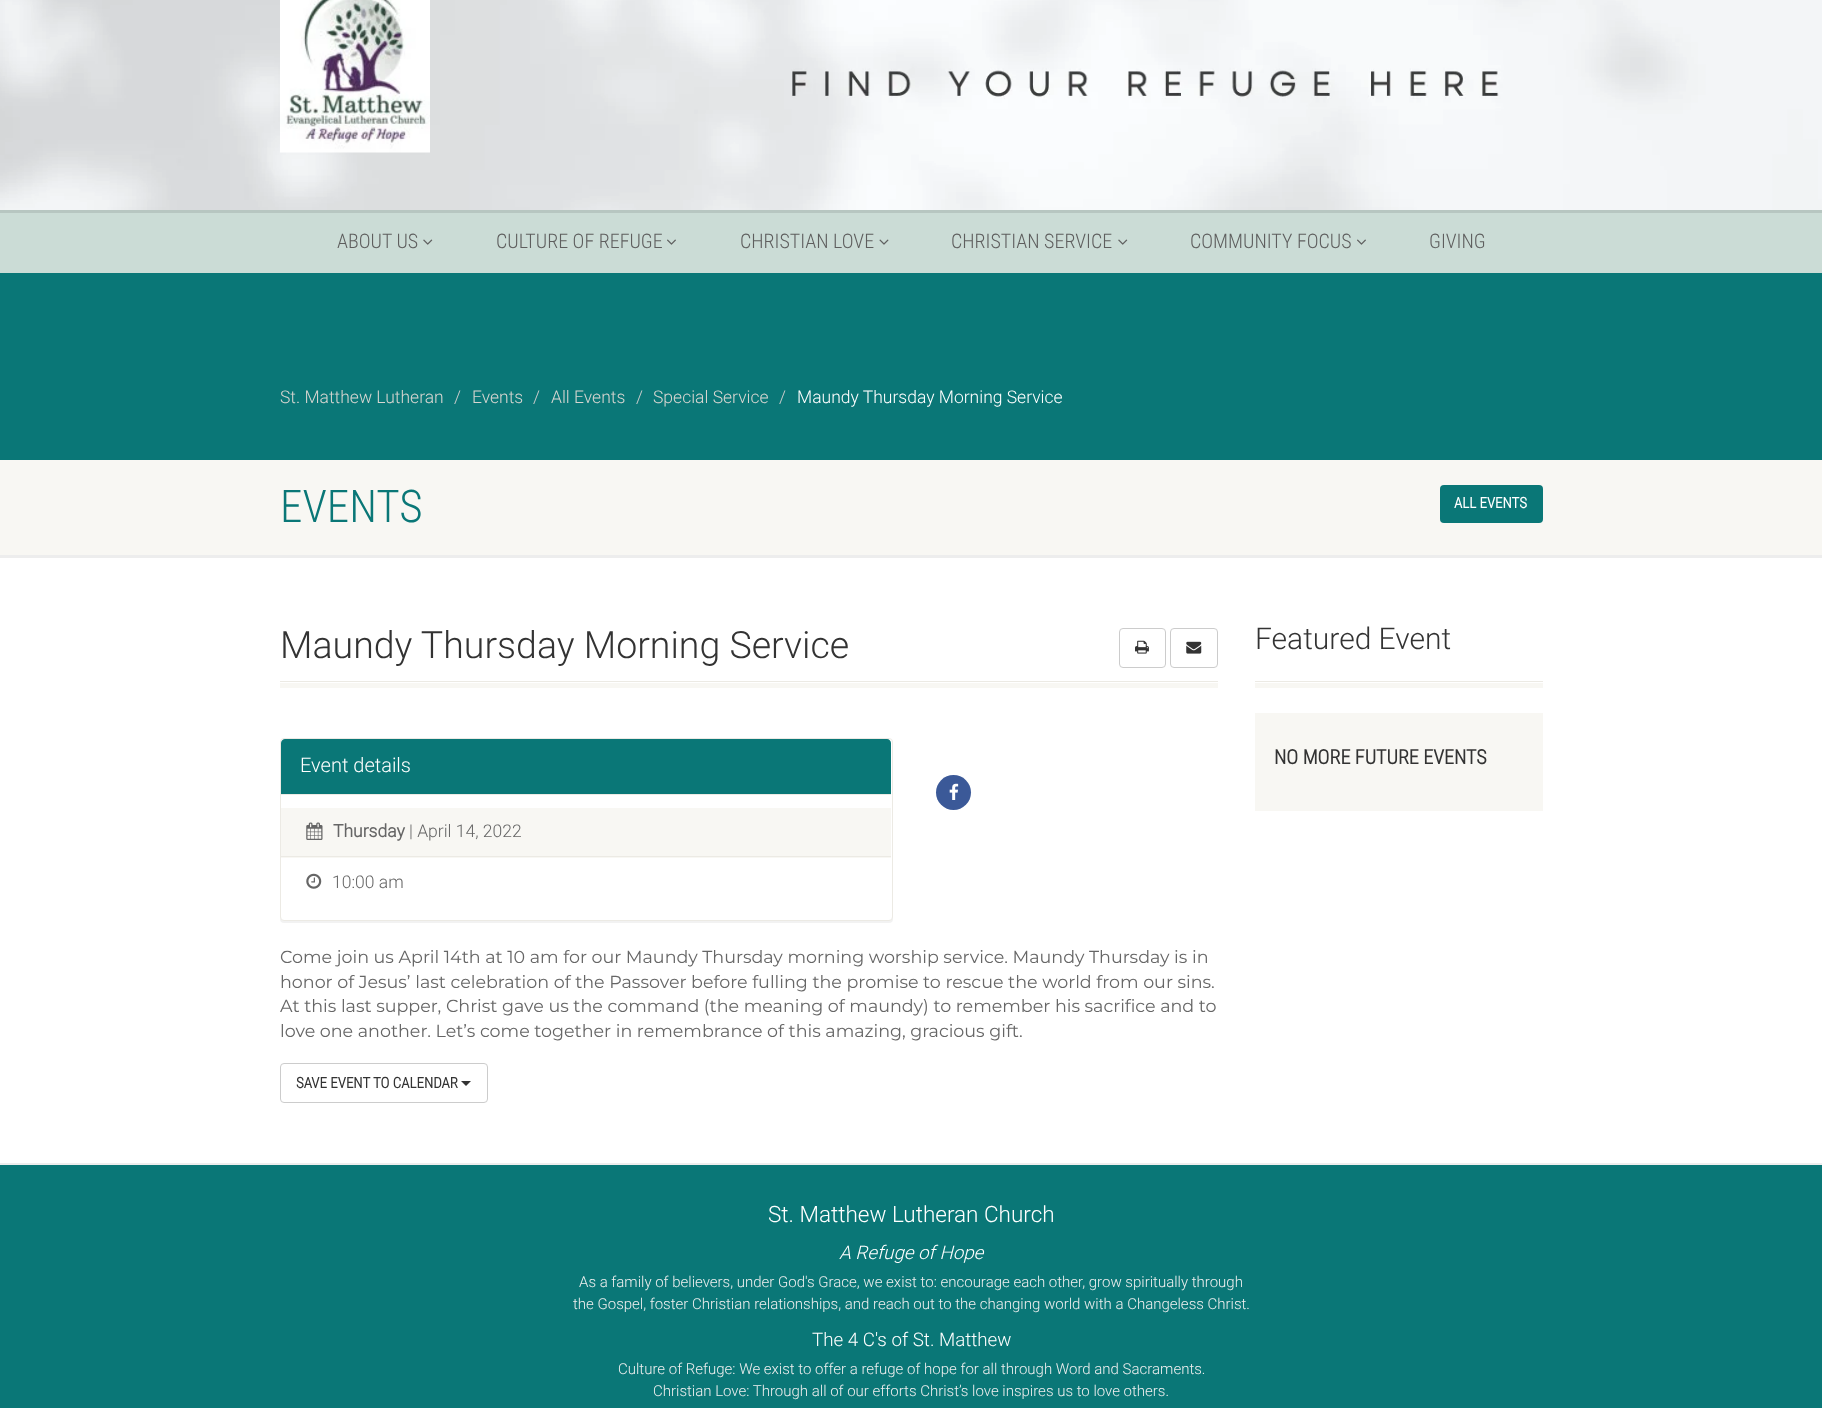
<svg xmlns="http://www.w3.org/2000/svg" width="1822" height="1408" viewBox="0 0 1822 1408">
  <rect width="100%" height="100%" fill="#fff"/>
  <path d="M0 210V213H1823V-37H1822V210Z" fill="#b7c6c1"/>
  <image x="0" y="0" width="1822" height="210" href="img/1.png"/>
  <image x="280" y="0" width="150" height="153" href="img/2.png"/>
  <path d="M0 213h1822v60H0z" fill="#cbdcd6"/>
  <image x="423" y="239" width="10" height="6" href="img/3.png"/>
  <image x="667" y="239" width="9" height="6" href="img/4.png"/>
  <image x="879" y="239" width="10" height="6" href="img/5.png"/>
  <image x="1118" y="239" width="10" height="6" href="img/3.png"/>
  <image x="1357" y="239" width="9" height="6" href="img/4.png"/>
  <path d="M0 273h1822v187H0z" fill="#0a7777"/>
  <path d="M0 555V558H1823V463H1822V555Z" fill="#ededed"/>
  <path d="M0 460h1822v95H0z" fill="#f8f7f3"/>
  <rect x="1440" y="485" width="103" height="38" rx="4" fill="#0a7777"/>
  <path d="M280 681h938v1H280z" fill="#eceae4"/>
  <rect x="1119.5" y="628.5" width="46" height="39" rx="3.5" fill="none" stroke="#ccc"/>
  <image x="1135" y="640" width="14" height="14" href="img/6.png"/>
  <rect x="1170.5" y="628.5" width="47" height="39" rx="3.5" fill="none" stroke="#ccc"/>
  <image x="1186" y="641" width="16" height="13" href="img/7.png"/>
  <path d="M280 683h938v5H280z" fill="#f8f7f3"/>
  <rect x="280" y="739" width="613" height="184" rx="4" fill="#0000000d" filter="blur(0.5px)"/>
  <rect x="280.5" y="738.5" width="612" height="182" rx="3.5" fill="#fff" stroke="#eceae4"/>
  <path d="M285 739H887C889 739 891 741 891 743V795H281V743C281 741 283 739 285 739Z" fill="#0a7777"/>
  <path d="M281 794h610v1H281z" fill="#eceae4"/>
  <path d="M281 808h610v50H281z" fill="#f8f7f3"/>
  <path d="M281 856h610v1H281z" fill="#eceae4"/>
  <image x="306" y="822" width="17" height="18" href="img/8.png"/>
  <image x="306" y="873" width="16" height="16" href="img/9.png"/>
  <circle cx="953.5" cy="792.5" r="17.5" fill="#3b5998"/>
  <image x="949" y="783" width="10" height="17" href="img/10.png"/>
  <rect x="280.5" y="1063.5" width="207" height="39" rx="3.5" fill="none" stroke="#ccc"/>
  <path d="M461 1081H471L466 1086Z" fill="#333"/>
  <path d="M1255 683h288v5H1255z" fill="#f8f7f3"/>
  <path d="M1255 681h288v1H1255z" fill="#eceae4"/>
  <path d="M1255 713h288v98H1255z" fill="#f8f7f3"/>
  <path d="M0 1163V1165H1822V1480H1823V1163Z" fill="#ededed"/>
  <path d="M0 1165h1822v243H0z" fill="#0a7777"/>
  <g font-family="Roboto Condensed" font-size="20" font-weight="300" fill="#5e5e5e">
    <text x="337" y="248">ABOUT US</text>
    <text x="496" y="248">CULTURE OF REFUGE</text>
    <text x="740" y="248">CHRISTIAN LOVE</text>
    <text x="951" y="248">CHRISTIAN SERVICE</text>
    <text x="1190" y="248">COMMUNITY FOCUS</text>
    <text x="1429" y="248">GIVING</text>
  </g>
  <text x="280" y="403" font-family="Roboto" font-size="17.5" font-weight="300" fill="#d8d6d1">St. Matthew Lutheran</text>
  <text x="454" y="403" font-family="Roboto" font-size="17.5" font-weight="300" fill="#ccc">/</text>
  <text x="472" y="403" font-family="Roboto" font-size="17.5" font-weight="300" fill="#d8d6d1">Events</text>
  <text x="533" y="403" font-family="Roboto" font-size="17.5" font-weight="300" fill="#ccc">/</text>
  <text x="551" y="403" font-family="Roboto" font-size="17.5" font-weight="300" fill="#d8d6d1">All Events</text>
  <text x="636" y="403" font-family="Roboto" font-size="17.5" font-weight="300" fill="#ccc">/</text>
  <text x="653" y="403" font-family="Roboto" font-size="17.5" font-weight="300" fill="#d8d6d1">Special Service</text>
  <text x="779" y="403" font-family="Roboto" font-size="17.5" font-weight="300" fill="#ccc">/</text>
  <text x="797" y="403" font-family="Roboto" font-size="17.5" font-weight="300" fill="#fff">Maundy Thursday Morning Service</text>
  <text x="280" y="522" font-family="Roboto Condensed" font-size="45" font-weight="300" fill="#0a7777">EVENTS</text>
  <text x="1454" y="508" font-family="Roboto Condensed" font-size="15" font-weight="bold" fill="#fff">ALL EVENTS</text>
  <text x="280" y="658" font-family="Roboto" font-size="37.5" font-weight="300" fill="#333">Maundy Thursday Morning Service</text>
  <text x="300" y="772" font-family="Roboto" font-size="20" font-weight="300" fill="#fff">Event details</text>
  <text x="333" y="837" font-family="Roboto" font-size="17.5" font-weight="bold" fill="#666">Thursday</text>
  <g font-family="Roboto" font-size="17.5" font-weight="300" fill="#666">
    <text x="409" y="837">| April 14, 2022</text>
    <text x="332" y="888">10:00 am</text>
  </g>
  <g font-family="Montserrat" font-size="17.5" font-weight="100" fill="#666">
    <text x="280" y="963">Come join us April 14th at 10 am for our Maundy Thursday morning worship service. Maundy Thursday is in</text>
    <text x="280" y="988">honor of Jesus’ last celebration of the Passover before fulling the promise to rescue the world from our sins.</text>
    <text x="280" y="1012">At this last supper, Christ gave us the command (the meaning of maundy) to remember his sacrifice and to</text>
    <text x="280" y="1037">love one another. Let’s come together in remembrance of this amazing, gracious gift.</text>
  </g>
  <text x="296" y="1088" font-family="Roboto Condensed" font-size="15" font-weight="bold" fill="#333">SAVE EVENT TO CALENDAR</text>
  <text x="1255" y="649" font-family="Roboto" font-size="30" font-weight="300" fill="#333">Featured Event</text>
  <text x="1274" y="764" font-family="Roboto Condensed" font-size="20" font-weight="bold" fill="#333">NO MORE FUTURE EVENTS</text>
  <text x="768" y="1222" font-family="Roboto" font-size="22.5" font-weight="300" fill="#fff">St. Matthew Lutheran Church</text>
  <text x="839" y="1259" font-family="Roboto" font-size="18.75" font-weight="300" font-style="italic" fill="#fff">A Refuge of Hope</text>
  <g font-family="Roboto" font-size="15" font-weight="300" fill="#efefef">
    <text x="579" y="1287">As a family of believers, under God's Grace, we exist to: encourage each other, grow spiritually through</text>
    <text x="573" y="1309">the Gospel, foster Christian relationships, and reach out to the changing world with a Changeless Christ.</text>
  </g>
  <text x="812" y="1346" font-family="Roboto" font-size="18.75" font-weight="300" fill="#fff">The 4 C's of St. Matthew</text>
  <g font-family="Roboto" font-size="15" font-weight="300" fill="#efefef">
    <text x="618" y="1374">Culture of Refuge: We exist to offer a refuge of hope for all through Word and Sacraments.</text>
    <text x="653" y="1396">Christian Love: Through all of our efforts Christ’s love inspires us to love others.</text>
  </g>
</svg>
